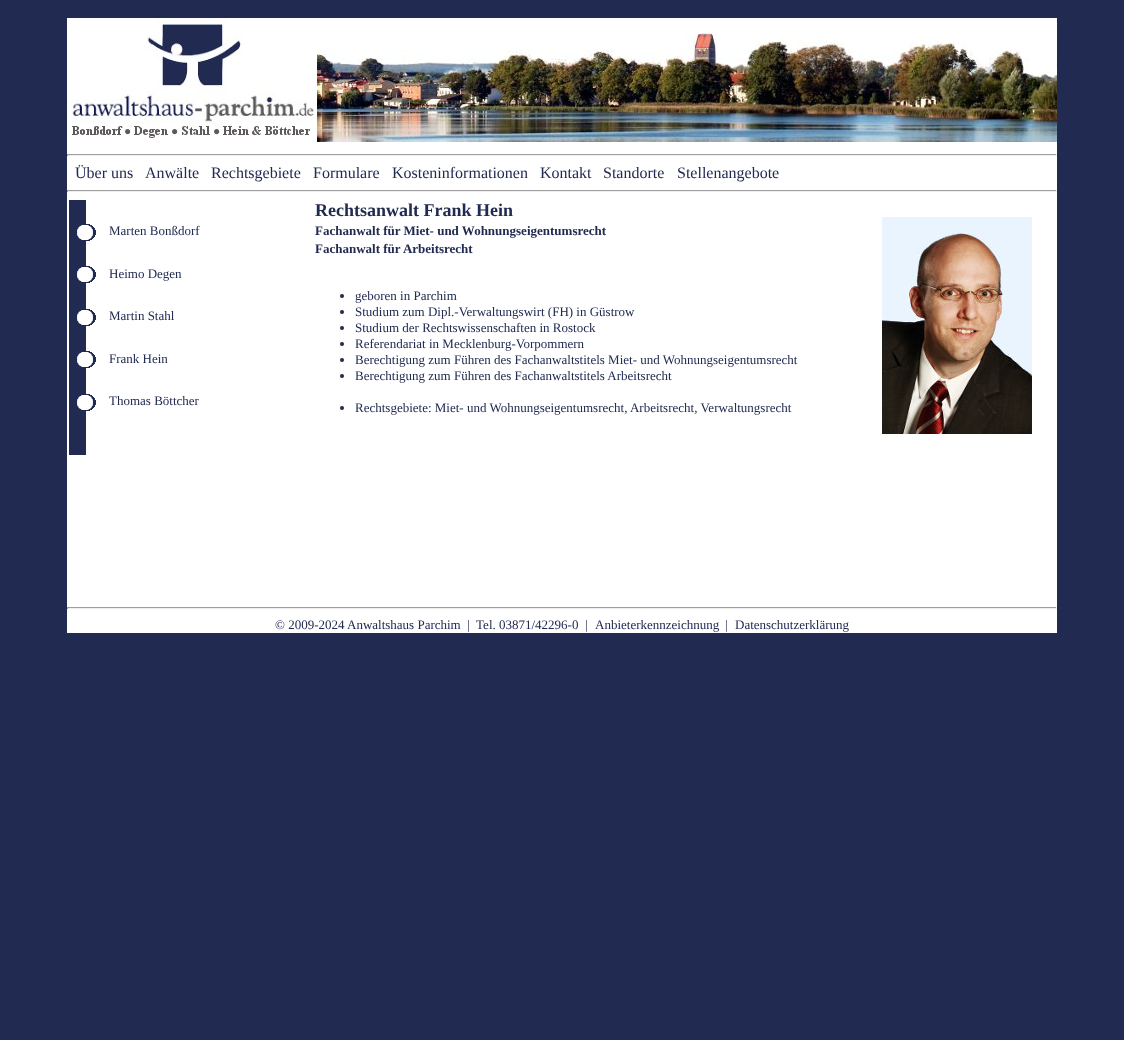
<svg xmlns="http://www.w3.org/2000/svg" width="1124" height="1040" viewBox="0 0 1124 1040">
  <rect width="100%" height="100%" fill="#212a51"/>
  <path d="M67 18h990v615H67z" fill="#fff"/>
  <image x="67" y="19" width="248" height="123" href="img/1.png"/>
  <image x="317" y="33" width="740" height="109" href="img/2.png"/>
  <path d="M67 154h990v1H67z" fill="#9f9f9f"/>
  <path d="M1056 154h1v2H1056z" fill="#eee"/>
  <path d="M67 155h990v1H67z" fill="#eee"/>
  <path d="M67 154h1v2H67z" fill="#9f9f9f"/>
  <path d="M67 190h990v1H67z" fill="#9f9f9f"/>
  <path d="M1056 190h1v2H1056z" fill="#eee"/>
  <path d="M67 191h990v1H67z" fill="#eee"/>
  <path d="M67 190h1v2H67z" fill="#9f9f9f"/>
  <path d="M69 200h17v255H69z" fill="#212a51"/>
  <image x="77" y="224" width="19" height="17" href="img/3.png"/>
  <image x="77" y="266" width="19" height="17" href="img/3.png"/>
  <image x="77" y="309" width="19" height="17" href="img/3.png"/>
  <image x="77" y="351" width="19" height="17" href="img/3.png"/>
  <image x="77" y="394" width="19" height="17" href="img/3.png"/>
  <circle cx="342" cy="296" r="2" fill="#212a51"/>
  <circle cx="342" cy="312" r="2" fill="#212a51"/>
  <circle cx="342" cy="328" r="2" fill="#212a51"/>
  <circle cx="342" cy="344" r="2" fill="#212a51"/>
  <circle cx="342" cy="360" r="2" fill="#212a51"/>
  <circle cx="342" cy="376" r="2" fill="#212a51"/>
  <circle cx="342" cy="408" r="2" fill="#212a51"/>
  <image x="882" y="217" width="150" height="217" href="img/4.png"/>
  <path d="M67 607h990v1H67z" fill="#9f9f9f"/>
  <path d="M1056 607h1v2H1056z" fill="#eee"/>
  <path d="M67 608h990v1H67z" fill="#eee"/>
  <path d="M67 607h1v2H67z" fill="#9f9f9f"/>
  <g font-family="Liberation Serif" font-size="16" fill="#212a51">
    <text x="75" y="178">Über uns</text>
    <text x="145" y="178">Anwälte</text>
    <text x="211" y="178">Rechtsgebiete</text>
    <text x="313" y="178">Formulare</text>
    <text x="392" y="178">Kosteninformationen</text>
    <text x="540" y="178">Kontakt</text>
    <text x="603" y="178">Standorte</text>
    <text x="677" y="178">Stellenangebote</text>
  </g>
  <g font-family="Liberation Serif" font-size="13" fill="#212a51">
    <text x="109" y="235">Marten Bonßdorf</text>
    <text x="109" y="278">Heimo Degen</text>
    <text x="109" y="320">Martin Stahl</text>
    <text x="109" y="363">Frank Hein</text>
    <text x="109" y="405">Thomas Böttcher</text>
  </g>
  <text x="315" y="216" font-family="Liberation Serif" font-size="18" font-weight="bold" fill="#212a51">Rechtsanwalt Frank Hein</text>
  <g font-family="Liberation Serif" font-size="13" font-weight="bold" fill="#212a51">
    <text x="315" y="235">Fachanwalt für Miet- und Wohnungseigentumsrecht</text>
    <text x="315" y="253">Fachanwalt für Arbeitsrecht</text>
  </g>
  <g font-family="Liberation Serif" font-size="13" fill="#212a51">
    <text x="355" y="300">geboren in Parchim</text>
    <text x="355" y="316">Studium zum Dipl.-Verwaltungswirt (FH) in Güstrow</text>
    <text x="355" y="332">Studium der Rechtswissenschaften in Rostock</text>
    <text x="355" y="348">Referendariat in Mecklenburg-Vorpommern</text>
    <text x="355" y="364">Berechtigung zum Führen des Fachanwaltstitels Miet- und Wohnungseigentumsrecht</text>
    <text x="355" y="380">Berechtigung zum Führen des Fachanwaltstitels Arbeitsrecht</text>
    <text x="355" y="412">Rechtsgebiete: Miet- und Wohnungseigentumsrecht, Arbeitsrecht, Verwaltungsrecht</text>
    <text x="275" y="629" xml:space="preserve">© 2009-2024 Anwaltshaus Parchim  |  Tel. 03871/42296-0  |</text>
    <text x="595" y="629">Anbieterkennzeichnung</text>
    <text x="725" y="629">|</text>
    <text x="735" y="629">Datenschutzerklärung</text>
  </g>
</svg>
